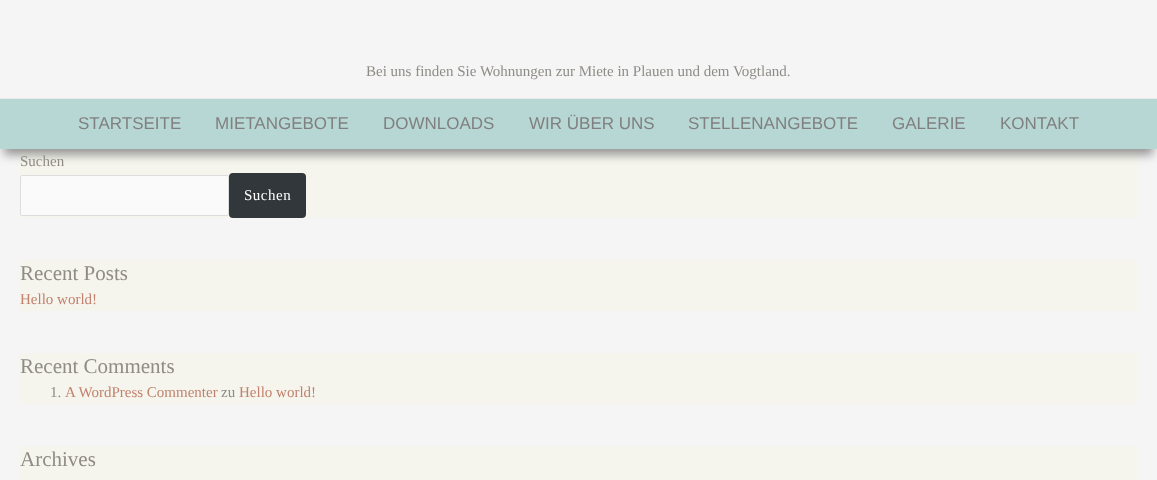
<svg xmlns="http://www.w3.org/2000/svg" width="1157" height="480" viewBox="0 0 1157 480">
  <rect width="100%" height="100%" fill="#f5f5f5"/>
  <path d="M0 98h1157v1H0z" fill="#eaeaea"/>
  <path d="M20 149h1117v69H20z" fill="#f5f5ed"/>
  <path d="M4 113h1149v42H4z" fill="#808080cc" filter="blur(5px)"/>
  <path d="M0 99h1157v50H0z" fill="#b7d7d4"/>
  <rect x="20.5" y="175.5" width="208" height="40" rx="1.5" fill="#fafafa" stroke="#ddd"/>
  <rect x="229" y="173" width="77" height="45" rx="4" fill="#32373c"/>
  <path d="M20 260h1117v51H20z" fill="#f5f5ed"/>
  <path d="M20 353h1117v51H20z" fill="#f5f5ed"/>
  <path d="M20 446h1117v34H20z" fill="#f5f5ed"/>
  <text x="366" y="76" font-family="Liberation Serif" font-size="15" fill="#8f8c88">Bei uns finden Sie Wohnungen zur Miete in Plauen und dem Vogtland.</text>
  <g font-family="Liberation Sans" font-size="17" fill="#808080">
    <text x="78" y="129">STARTSEITE</text>
    <text x="215" y="129">MIETANGEBOTE</text>
    <text x="383" y="129">DOWNLOADS</text>
    <text x="529" y="129">WIR ÜBER UNS</text>
    <text x="688" y="129">STELLENANGEBOTE</text>
    <text x="892" y="129">GALERIE</text>
    <text x="1000" y="129">KONTAKT</text>
  </g>
  <text x="20" y="166" font-family="Liberation Serif" font-size="15" fill="#8f8c88">Suchen</text>
  <text x="244" y="200" font-family="Liberation Serif" font-size="15" letter-spacing="0.5" fill="#fff">Suchen</text>
  <text x="20" y="280" font-family="Liberation Serif" font-size="21" fill="#8f8c88">Recent Posts</text>
  <text x="20" y="304" font-family="Liberation Serif" font-size="15" fill="#c1816d">Hello world!</text>
  <text x="20" y="373" font-family="Liberation Serif" font-size="21" fill="#8f8c88">Recent Comments</text>
  <text x="50" y="397" font-family="Liberation Serif" font-size="15" fill="#8f8c88">1.</text>
  <text x="65" y="397" font-family="Liberation Serif" font-size="15" fill="#c1816d">A WordPress Commenter</text>
  <text x="221" y="397" font-family="Liberation Serif" font-size="15" fill="#8f8c88">zu</text>
  <text x="239" y="397" font-family="Liberation Serif" font-size="15" fill="#c1816d">Hello world!</text>
  <text x="20" y="466" font-family="Liberation Serif" font-size="21" fill="#8f8c88">Archives</text>
</svg>
